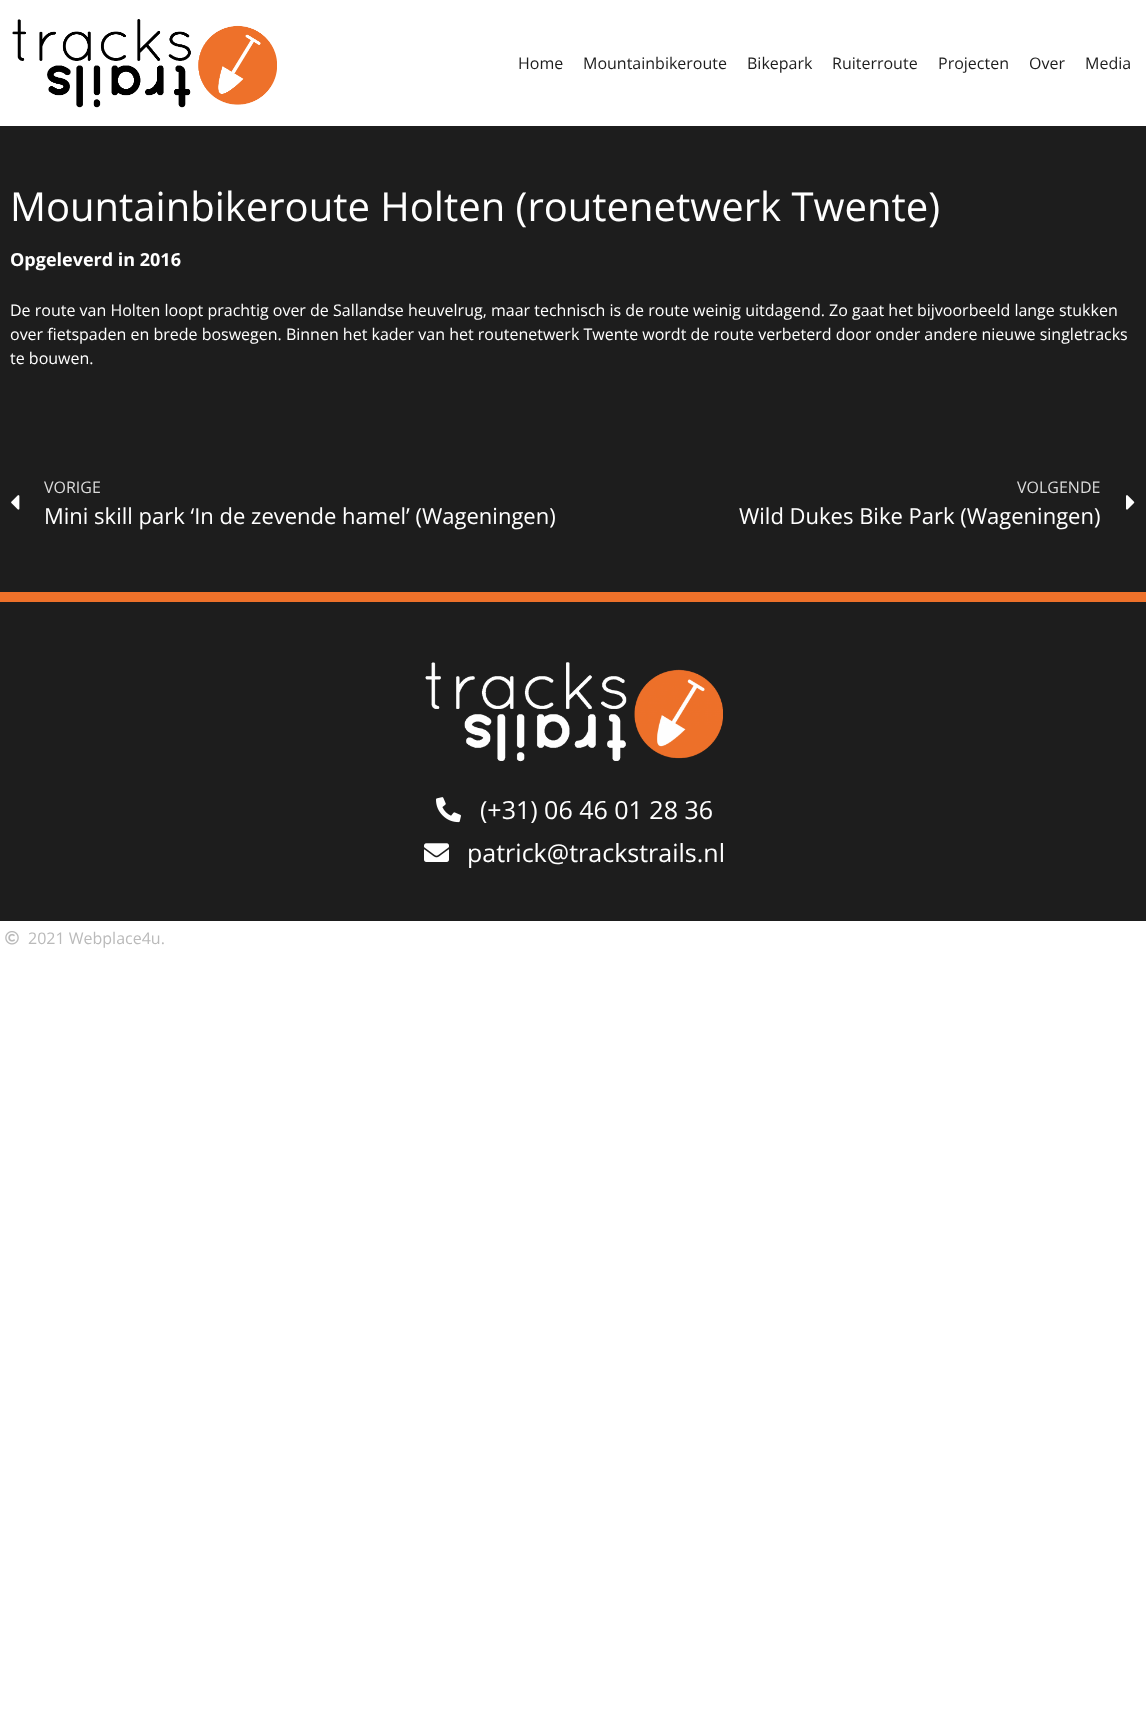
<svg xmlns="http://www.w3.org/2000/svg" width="1146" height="1717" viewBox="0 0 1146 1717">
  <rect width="100%" height="100%" fill="#fff"/>
  <image x="12" y="19" width="265" height="89" href="img/1.png"/>
  <path d="M0 126h1146v466H0z" fill="#1d1d1d"/>
  <image x="11" y="495" width="9" height="15" href="img/2.png"/>
  <image x="1126" y="495" width="9" height="15" href="img/3.png"/>
  <path d="M0 602h1146v319H0z" fill="#1d1d1d"/>
  <path d="M0 592h1146v10H0z" fill="#ee712a"/>
  <image x="425" y="662" width="298" height="100" href="img/4.png"/>
  <image x="436" y="797" width="25" height="26" href="img/5.png"/>
  <image x="424" y="843" width="25" height="19" href="img/6.png"/>
  <image x="5" y="931" width="14" height="14" href="img/7.png"/>
  <g font-family="Open Sans" font-size="16" fill="#1d1d1d">
    <text x="518" y="69">Home</text>
    <text x="583" y="69">Mountainbikeroute</text>
    <text x="747" y="69">Bikepark</text>
    <text x="832" y="69">Ruiterroute</text>
    <text x="938" y="69">Projecten</text>
    <text x="1029" y="69">Over</text>
    <text x="1085" y="69">Media</text>
  </g>
  <text x="10" y="221" font-family="Open Sans" font-size="40" fill="#fff">Mountainbikeroute Holten (routenetwerk Twente)</text>
  <text x="10" y="266" font-family="Open Sans" font-size="18" font-weight="bold" fill="#fff">Opgeleverd in 2016</text>
  <g font-family="Open Sans" font-size="16" fill="#fff">
    <text x="10" y="316">De route van Holten loopt prachtig over de Sallandse heuvelrug, maar technisch is de route weinig uitdagend. Zo gaat het bijvoorbeeld lange stukken</text>
    <text x="10" y="340">over fietspaden en brede boswegen. Binnen het kader van het routenetwerk Twente wordt de route verbeterd door onder andere nieuwe singletracks</text>
    <text x="10" y="364">te bouwen.</text>
  </g>
  <text x="44" y="493" font-family="Open Sans" font-size="16" fill="#dbdbdb">VORIGE</text>
  <text x="44" y="524" font-family="Open Sans" font-size="22" fill="#fff">Mini skill park ‘In de zevende hamel’ (Wageningen)</text>
  <text x="1017" y="493" font-family="Open Sans" font-size="16" fill="#dbdbdb">VOLGENDE</text>
  <text x="739" y="524" font-family="Open Sans" font-size="22" fill="#fff">Wild Dukes Bike Park (Wageningen)</text>
  <g font-family="Open Sans" font-size="25" fill="#fff">
    <text x="480" y="819">(+31) 06 46 01 28 36</text>
    <text x="467" y="862">patrick@trackstrails.nl</text>
  </g>
  <text x="28" y="944" font-family="Open Sans" font-size="16" fill="#bababa">2021 Webplace4u.</text>
</svg>
